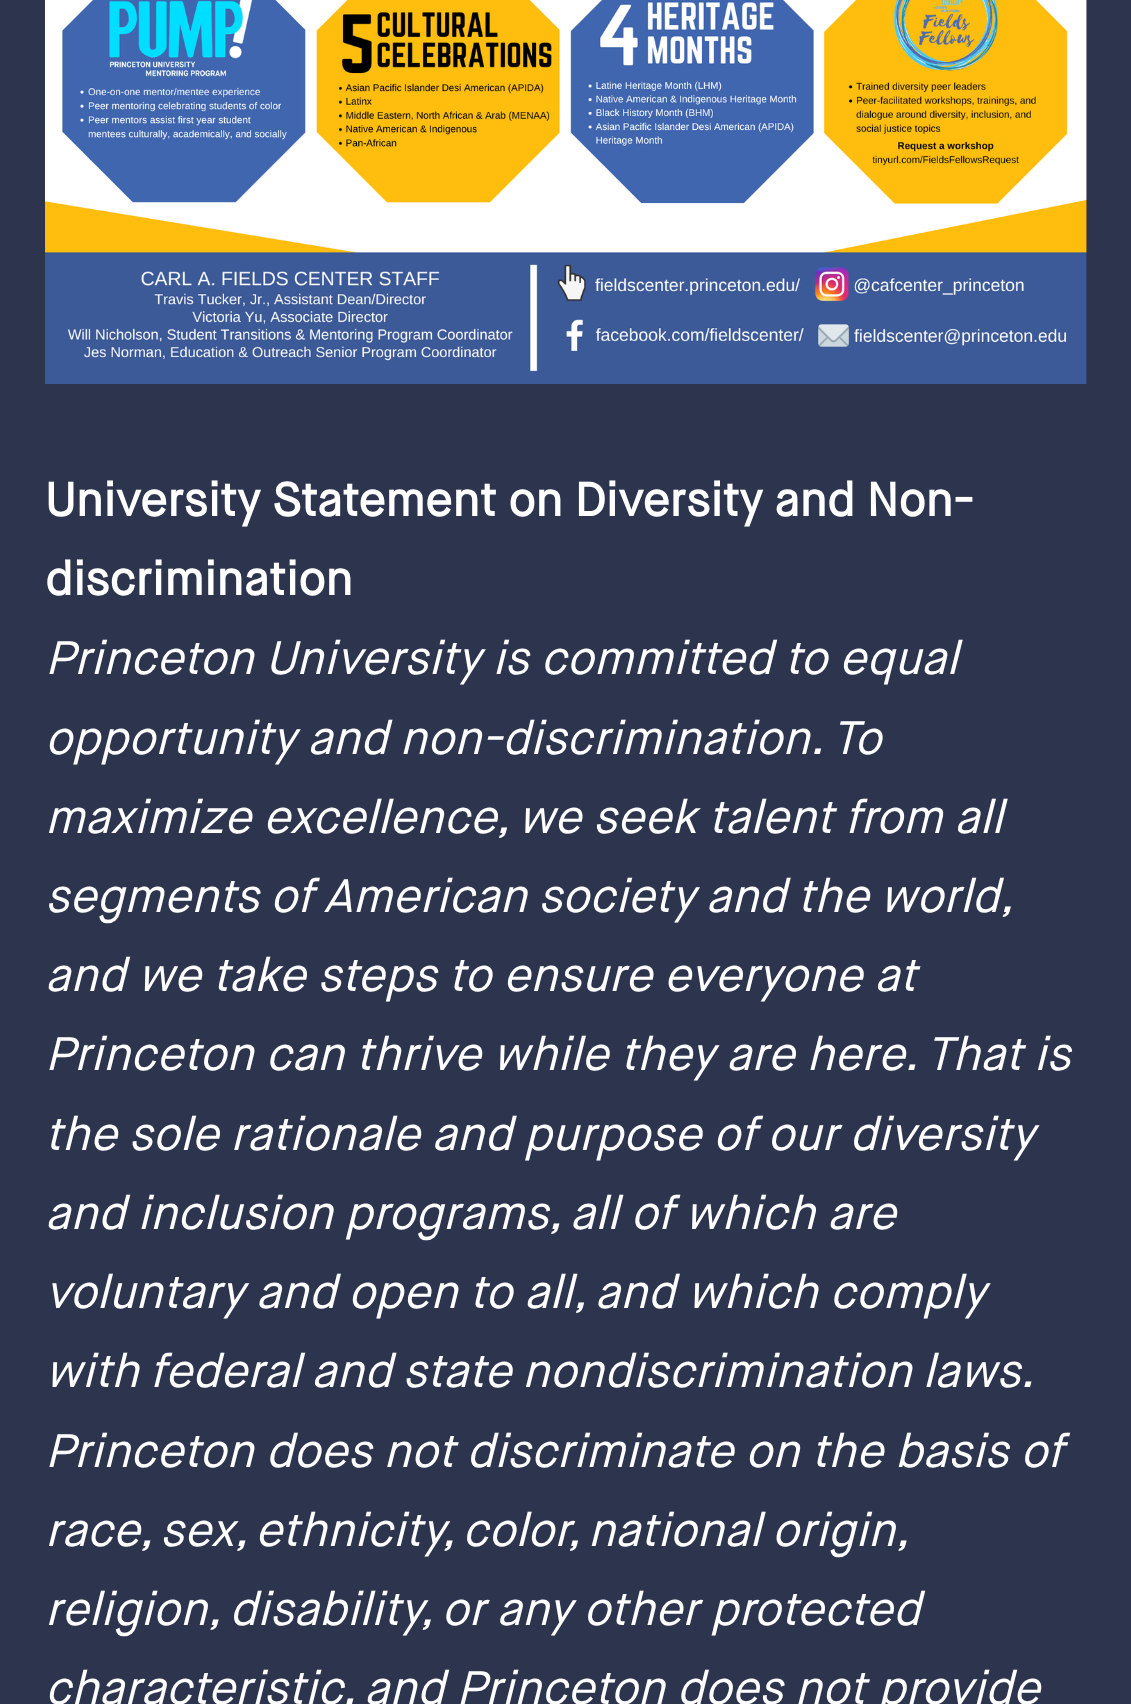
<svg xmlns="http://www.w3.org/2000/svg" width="1131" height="1704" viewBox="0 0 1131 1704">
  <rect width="100%" height="100%" fill="#2d354e"/>
  <image x="45" y="0" width="1042" height="384" href="img/1.png"/>
  <g font-family="Maison Neue" font-size="46.8" font-weight="bold" fill="#fff">
    <text x="45" y="516">University Statement on Diversity and Non-</text>
    <text x="45" y="595">discrimination</text>
  </g>
  <g font-family="Maison Neue" font-size="46.8" font-style="italic" fill="#fff">
    <text x="45" y="674">Princeton University is committed to equal</text>
    <text x="45" y="754">opportunity and non-discrimination. To</text>
    <text x="45" y="833">maximize excellence, we seek talent from all</text>
    <text x="45" y="912" word-spacing="-0.75">segments of American society and the world,</text>
    <text x="45" y="991">and we take steps to ensure everyone at</text>
    <text x="45" y="1070">Princeton can thrive while they are here. That is</text>
    <text x="45" y="1150">the sole rationale and purpose of our diversity</text>
    <text x="45" y="1229">and inclusion programs, all of which are</text>
    <text x="45" y="1308">voluntary and open to all, and which comply</text>
    <text x="45" y="1387" word-spacing="-1">with federal and state nondiscrimination laws.</text>
    <text x="45" y="1467">Princeton does not discriminate on the basis of</text>
    <text x="45" y="1546" word-spacing="-1">race, sex, ethnicity, color, national origin,</text>
    <text x="45" y="1625">religion, disability, or any other protected</text>
    <text x="45" y="1704">characteristic, and Princeton does not provide</text>
  </g>
</svg>
